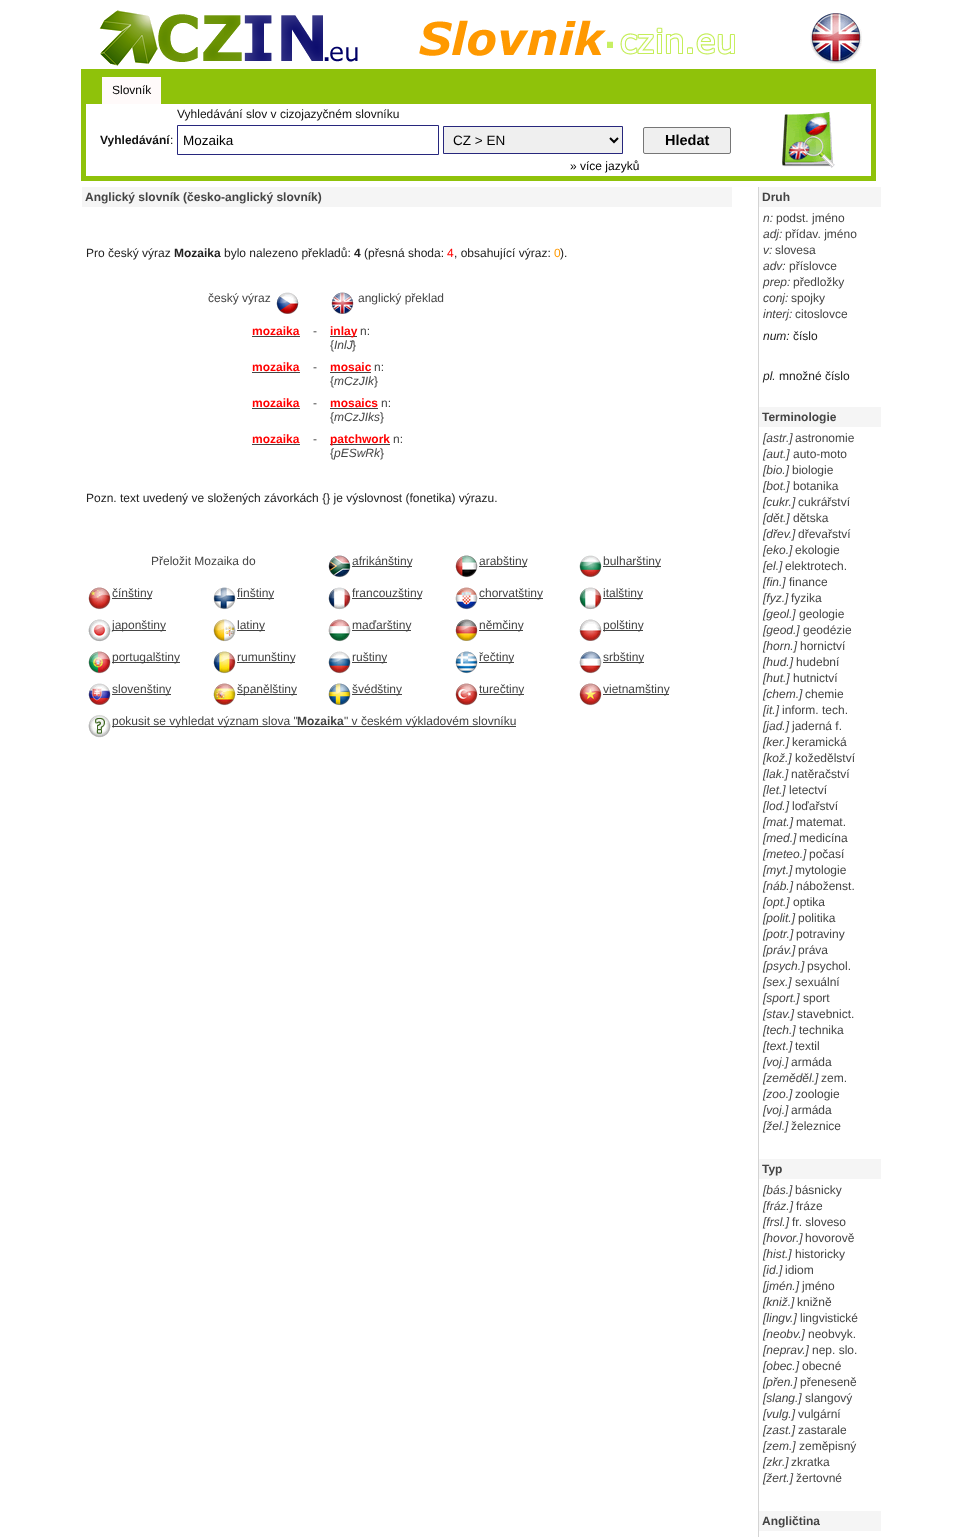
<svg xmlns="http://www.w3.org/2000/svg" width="957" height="1537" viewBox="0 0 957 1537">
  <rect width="100%" height="100%" fill="#fff"/>
  <image x="99" y="10" width="259" height="56" href="img/1.png"/>
  <image x="419" y="20" width="316" height="36" href="img/2.png"/>
  <image x="810" y="13" width="52" height="51" href="img/3.png"/>
  <path d="M81 69h795v112H81z" fill="#8fc20a"/>
  <path d="M102 77h59v27H102z" fill="#fffafa"/>
  <path d="M86 104h785v72H86z" fill="#fff"/>
  <image x="782" y="112" width="53" height="56" href="img/4.png"/>
  <path d="M177.5 125.5h261v29H177.5z" fill="none" stroke="#27277d"/>
  <path d="M443.5 126.5h179v27H443.5z" fill="#efefef" stroke="#27277d"/>
  <path d="M610 138L614 142L618 138" fill="none" stroke="#000" stroke-width="2"/>
  <rect x="643.5" y="127.5" width="87" height="26" rx="1.5" fill="#efefef" stroke="#767676"/>
  <path d="M82 187h650v20H82z" fill="#f5f5f5"/>
  <image x="276" y="292" width="23" height="22" href="img/5.png"/>
  <image x="331" y="292" width="23" height="22" href="img/6.png"/>
  <path d="M252 336h48v1H252z" fill="#444"/>
  <path d="M330 336h27v1H330z" fill="#444"/>
  <path d="M252 372h48v1H252z" fill="#444"/>
  <path d="M330 372h41v1H330z" fill="#444"/>
  <path d="M252 408h48v1H252z" fill="#444"/>
  <path d="M330 408h48v1H330z" fill="#444"/>
  <path d="M252 444h48v1H252z" fill="#444"/>
  <path d="M330 444h60v1H330z" fill="#444"/>
  <image x="328" y="555" width="23" height="23" href="img/7.png"/>
  <path d="M352 566h60v1H352z" fill="#444"/>
  <image x="455" y="555" width="23" height="23" href="img/8.png"/>
  <path d="M479 566h48v1H479z" fill="#444"/>
  <image x="579" y="555" width="23" height="23" href="img/9.png"/>
  <path d="M603 566h58v1H603z" fill="#444"/>
  <image x="88" y="587" width="23" height="23" href="img/10.png"/>
  <path d="M112 598h40v1H112z" fill="#444"/>
  <image x="212" y="587" width="25" height="23" href="img/11.png"/>
  <path d="M237 598h37v1H237z" fill="#444"/>
  <image x="328" y="587" width="23" height="23" href="img/12.png"/>
  <path d="M352 598h70v1H352z" fill="#444"/>
  <image x="454" y="587" width="25" height="23" href="img/13.png"/>
  <path d="M479 598h64v1H479z" fill="#444"/>
  <image x="579" y="587" width="23" height="23" href="img/14.png"/>
  <path d="M603 598h40v1H603z" fill="#444"/>
  <image x="87" y="619" width="25" height="23" href="img/15.png"/>
  <path d="M112 630h54v1H112z" fill="#444"/>
  <image x="213" y="619" width="23" height="23" href="img/16.png"/>
  <path d="M237 630h28v1H237z" fill="#444"/>
  <image x="327" y="619" width="25" height="23" href="img/17.png"/>
  <path d="M352 630h59v1H352z" fill="#444"/>
  <image x="455" y="619" width="23" height="22" href="img/18.png"/>
  <path d="M479 630h44v1H479z" fill="#444"/>
  <image x="579" y="619" width="23" height="22" href="img/19.png"/>
  <path d="M603 630h40v1H603z" fill="#444"/>
  <image x="88" y="651" width="23" height="23" href="img/20.png"/>
  <path d="M112 662h68v1H112z" fill="#444"/>
  <image x="213" y="651" width="23" height="23" href="img/21.png"/>
  <path d="M237 662h58v1H237z" fill="#444"/>
  <image x="328" y="651" width="23" height="23" href="img/22.png"/>
  <path d="M352 662h35v1H352z" fill="#444"/>
  <image x="455" y="651" width="23" height="23" href="img/23.png"/>
  <path d="M479 662h35v1H479z" fill="#444"/>
  <image x="579" y="651" width="23" height="23" href="img/24.png"/>
  <path d="M603 662h41v1H603z" fill="#444"/>
  <image x="88" y="683" width="23" height="22" href="img/25.png"/>
  <path d="M112 694h59v1H112z" fill="#444"/>
  <image x="213" y="683" width="23" height="23" href="img/26.png"/>
  <path d="M237 694h60v1H237z" fill="#444"/>
  <image x="328" y="683" width="23" height="23" href="img/27.png"/>
  <path d="M352 694h50v1H352z" fill="#444"/>
  <image x="455" y="683" width="23" height="23" href="img/28.png"/>
  <path d="M479 694h45v1H479z" fill="#444"/>
  <image x="579" y="683" width="23" height="23" href="img/29.png"/>
  <path d="M603 694h66v1H603z" fill="#444"/>
  <image x="88" y="715" width="23" height="23" href="img/30.png"/>
  <path d="M112 726h404v1H112z" fill="#444"/>
  <path d="M758 187h1v1350H758z" fill="#d4d4d4"/>
  <path d="M759 187h122v20H759z" fill="#f5f5f5"/>
  <path d="M759 407h122v20H759z" fill="#f5f5f5"/>
  <path d="M759 1159h122v20H759z" fill="#f5f5f5"/>
  <path d="M759 1511h122v20H759z" fill="#f5f5f5"/>
  <text x="112" y="94" font-family="Liberation Sans" font-size="12" fill="#000">Slovník</text>
  <text x="177" y="118" font-family="Liberation Sans" font-size="12" fill="#111">Vyhledávání slov v cizojazyčném slovníku</text>
  <text x="100" y="144" font-family="Liberation Sans" font-size="12" font-weight="bold" fill="#111">Vyhledávání</text>
  <text x="170" y="144" font-family="Liberation Sans" font-size="12" fill="#111">:</text>
  <g font-family="Liberation Sans" font-size="13.5" fill="#000">
    <text x="183" y="145">Mozaika</text>
    <text x="453" y="145">CZ &gt; EN</text>
  </g>
  <text x="665" y="145" font-family="Liberation Sans" font-size="14.5" font-weight="bold" fill="#000">Hledat</text>
  <text x="570" y="170" font-family="Liberation Sans" font-size="12" fill="#000">» více jazyků</text>
  <text x="85" y="201" font-family="Liberation Sans" font-size="12" font-weight="bold" fill="#444">Anglický slovník (česko-anglický slovník)</text>
  <text x="86" y="257" font-family="Liberation Sans" font-size="12" fill="#222">Pro český výraz</text>
  <text x="174" y="257" font-family="Liberation Sans" font-size="12" font-weight="bold" fill="#222">Mozaika</text>
  <text x="224" y="257" font-family="Liberation Sans" font-size="12" fill="#222">bylo nalezeno překladů:</text>
  <text x="354" y="257" font-family="Liberation Sans" font-size="12" font-weight="bold" fill="#222">4</text>
  <text x="364" y="257" font-family="Liberation Sans" font-size="12" fill="#222">(přesná shoda:</text>
  <text x="447" y="257" font-family="Liberation Sans" font-size="12" fill="#f00">4</text>
  <text x="454" y="257" font-family="Liberation Sans" font-size="12" fill="#222">, obsahující výraz:</text>
  <text x="554" y="257" font-family="Liberation Sans" font-size="12" fill="#f90">0</text>
  <text x="560" y="257" font-family="Liberation Sans" font-size="12" fill="#222">).</text>
  <g font-family="Liberation Sans" font-size="12" fill="#444">
    <text x="208" y="302">český výraz</text>
    <text x="358" y="302">anglický překlad</text>
  </g>
  <text x="252" y="335" font-family="Liberation Sans" font-size="12" font-weight="bold" fill="#f00">mozaika</text>
  <text x="313" y="335" font-family="Liberation Sans" font-size="12" fill="#444">-</text>
  <text x="330" y="335" font-family="Liberation Sans" font-size="12" font-weight="bold" fill="#f00">inlay</text>
  <g font-family="Liberation Sans" font-size="12" fill="#444">
    <text x="360" y="335">n:</text>
    <text x="330" y="349">{</text>
  </g>
  <text x="334" y="349" font-family="Liberation Sans" font-size="12" font-style="italic" fill="#444">InlJ</text>
  <text x="352" y="349" font-family="Liberation Sans" font-size="12" fill="#444">}</text>
  <text x="252" y="371" font-family="Liberation Sans" font-size="12" font-weight="bold" fill="#f00">mozaika</text>
  <text x="313" y="371" font-family="Liberation Sans" font-size="12" fill="#444">-</text>
  <text x="330" y="371" font-family="Liberation Sans" font-size="12" font-weight="bold" fill="#f00">mosaic</text>
  <g font-family="Liberation Sans" font-size="12" fill="#444">
    <text x="374" y="371">n:</text>
    <text x="330" y="385">{</text>
  </g>
  <text x="334" y="385" font-family="Liberation Sans" font-size="12" font-style="italic" fill="#444">mCzJIk</text>
  <text x="374" y="385" font-family="Liberation Sans" font-size="12" fill="#444">}</text>
  <text x="252" y="407" font-family="Liberation Sans" font-size="12" font-weight="bold" fill="#f00">mozaika</text>
  <text x="313" y="407" font-family="Liberation Sans" font-size="12" fill="#444">-</text>
  <text x="330" y="407" font-family="Liberation Sans" font-size="12" font-weight="bold" fill="#f00">mosaics</text>
  <g font-family="Liberation Sans" font-size="12" fill="#444">
    <text x="381" y="407">n:</text>
    <text x="330" y="421">{</text>
  </g>
  <text x="334" y="421" font-family="Liberation Sans" font-size="12" font-style="italic" fill="#444">mCzJIks</text>
  <text x="380" y="421" font-family="Liberation Sans" font-size="12" fill="#444">}</text>
  <text x="252" y="443" font-family="Liberation Sans" font-size="12" font-weight="bold" fill="#f00">mozaika</text>
  <text x="313" y="443" font-family="Liberation Sans" font-size="12" fill="#444">-</text>
  <text x="330" y="443" font-family="Liberation Sans" font-size="12" font-weight="bold" fill="#f00">patchwork</text>
  <g font-family="Liberation Sans" font-size="12" fill="#444">
    <text x="393" y="443">n:</text>
    <text x="330" y="457">{</text>
  </g>
  <text x="334" y="457" font-family="Liberation Sans" font-size="12" font-style="italic" fill="#444">pESwRk</text>
  <text x="380" y="457" font-family="Liberation Sans" font-size="12" fill="#444">}</text>
  <text x="86" y="502" font-family="Liberation Sans" font-size="12" fill="#222">Pozn. text uvedený ve složených závorkách {} je výslovnost (fonetika) výrazu.</text>
  <g font-family="Liberation Sans" font-size="12" fill="#444">
    <text x="151" y="565">Přeložit Mozaika do</text>
    <text x="352" y="565">afrikánštiny</text>
    <text x="479" y="565">arabštiny</text>
    <text x="603" y="565">bulharštiny</text>
    <text x="112" y="597">čínštiny</text>
    <text x="237" y="597">finštiny</text>
    <text x="352" y="597">francouzštiny</text>
    <text x="479" y="597">chorvatštiny</text>
    <text x="603" y="597">italštiny</text>
    <text x="112" y="629">japonštiny</text>
    <text x="237" y="629">latiny</text>
    <text x="352" y="629">maďarštiny</text>
    <text x="479" y="629">němčiny</text>
    <text x="603" y="629">polštiny</text>
    <text x="112" y="661">portugalštiny</text>
    <text x="237" y="661">rumunštiny</text>
    <text x="352" y="661">ruštiny</text>
    <text x="479" y="661">řečtiny</text>
    <text x="603" y="661">srbštiny</text>
    <text x="112" y="693">slovenštiny</text>
    <text x="237" y="693">španělštiny</text>
    <text x="352" y="693">švédštiny</text>
    <text x="479" y="693">turečtiny</text>
    <text x="603" y="693">vietnamštiny</text>
    <text x="112" y="725">pokusit se vyhledat význam slova "</text>
  </g>
  <text x="297" y="725" font-family="Liberation Sans" font-size="12" font-weight="bold" fill="#444">Mozaika</text>
  <text x="344" y="725" font-family="Liberation Sans" font-size="12" fill="#444">" v českém výkladovém slovníku</text>
  <text x="762" y="201" font-family="Liberation Sans" font-size="12" font-weight="bold" fill="#444">Druh</text>
  <text x="763" y="222" font-family="Liberation Sans" font-size="12" font-style="italic" fill="#444">n:</text>
  <text x="776" y="222" font-family="Liberation Sans" font-size="12" fill="#444">podst. jméno</text>
  <text x="763" y="238" font-family="Liberation Sans" font-size="12" font-style="italic" fill="#444">adj:</text>
  <text x="785" y="238" font-family="Liberation Sans" font-size="12" fill="#444">přídav. jméno</text>
  <text x="763" y="254" font-family="Liberation Sans" font-size="12" font-style="italic" fill="#444">v:</text>
  <text x="775" y="254" font-family="Liberation Sans" font-size="12" fill="#444">slovesa</text>
  <text x="763" y="270" font-family="Liberation Sans" font-size="12" font-style="italic" fill="#444">adv:</text>
  <text x="789" y="270" font-family="Liberation Sans" font-size="12" fill="#444">příslovce</text>
  <text x="763" y="286" font-family="Liberation Sans" font-size="12" font-style="italic" fill="#444">prep:</text>
  <text x="793" y="286" font-family="Liberation Sans" font-size="12" fill="#444">předložky</text>
  <text x="763" y="302" font-family="Liberation Sans" font-size="12" font-style="italic" fill="#444">conj:</text>
  <text x="791" y="302" font-family="Liberation Sans" font-size="12" fill="#444">spojky</text>
  <text x="763" y="318" font-family="Liberation Sans" font-size="12" font-style="italic" fill="#444">interj:</text>
  <text x="795" y="318" font-family="Liberation Sans" font-size="12" fill="#444">citoslovce</text>
  <text x="763" y="340" font-family="Liberation Sans" font-size="12" font-style="italic" fill="#222">num:</text>
  <text x="793" y="340" font-family="Liberation Sans" font-size="12" fill="#222">číslo</text>
  <text x="763" y="380" font-family="Liberation Sans" font-size="12" font-style="italic" fill="#222">pl.</text>
  <text x="779" y="380" font-family="Liberation Sans" font-size="12" fill="#222">množné číslo</text>
  <text x="762" y="421" font-family="Liberation Sans" font-size="12" font-weight="bold" fill="#444">Terminologie</text>
  <text x="763" y="442" font-family="Liberation Sans" font-size="12" font-style="italic" fill="#444">[astr.]</text>
  <text x="795" y="442" font-family="Liberation Sans" font-size="12" fill="#444">astronomie</text>
  <text x="763" y="458" font-family="Liberation Sans" font-size="12" font-style="italic" fill="#444">[aut.]</text>
  <text x="793" y="458" font-family="Liberation Sans" font-size="12" fill="#444">auto-moto</text>
  <text x="763" y="474" font-family="Liberation Sans" font-size="12" font-style="italic" fill="#444">[bio.]</text>
  <text x="792" y="474" font-family="Liberation Sans" font-size="12" fill="#444">biologie</text>
  <text x="763" y="490" font-family="Liberation Sans" font-size="12" font-style="italic" fill="#444">[bot.]</text>
  <text x="793" y="490" font-family="Liberation Sans" font-size="12" fill="#444">botanika</text>
  <text x="763" y="506" font-family="Liberation Sans" font-size="12" font-style="italic" fill="#444">[cukr.]</text>
  <text x="798" y="506" font-family="Liberation Sans" font-size="12" fill="#444">cukrářství</text>
  <text x="763" y="522" font-family="Liberation Sans" font-size="12" font-style="italic" fill="#444">[dět.]</text>
  <text x="793" y="522" font-family="Liberation Sans" font-size="12" fill="#444">dětska</text>
  <text x="763" y="538" font-family="Liberation Sans" font-size="12" font-style="italic" fill="#444">[dřev.]</text>
  <text x="798" y="538" font-family="Liberation Sans" font-size="12" fill="#444">dřevařství</text>
  <text x="763" y="554" font-family="Liberation Sans" font-size="12" font-style="italic" fill="#444">[eko.]</text>
  <text x="795" y="554" font-family="Liberation Sans" font-size="12" fill="#444">ekologie</text>
  <text x="763" y="570" font-family="Liberation Sans" font-size="12" font-style="italic" fill="#444">[el.]</text>
  <text x="785" y="570" font-family="Liberation Sans" font-size="12" fill="#444">elektrotech.</text>
  <text x="763" y="586" font-family="Liberation Sans" font-size="12" font-style="italic" fill="#444">[fin.]</text>
  <text x="789" y="586" font-family="Liberation Sans" font-size="12" fill="#444">finance</text>
  <text x="763" y="602" font-family="Liberation Sans" font-size="12" font-style="italic" fill="#444">[fyz.]</text>
  <text x="791" y="602" font-family="Liberation Sans" font-size="12" fill="#444">fyzika</text>
  <text x="763" y="618" font-family="Liberation Sans" font-size="12" font-style="italic" fill="#444">[geol.]</text>
  <text x="799" y="618" font-family="Liberation Sans" font-size="12" fill="#444">geologie</text>
  <text x="763" y="634" font-family="Liberation Sans" font-size="12" font-style="italic" fill="#444">[geod.]</text>
  <text x="803" y="634" font-family="Liberation Sans" font-size="12" fill="#444">geodézie</text>
  <text x="763" y="650" font-family="Liberation Sans" font-size="12" font-style="italic" fill="#444">[horn.]</text>
  <text x="800" y="650" font-family="Liberation Sans" font-size="12" fill="#444">hornictví</text>
  <text x="763" y="666" font-family="Liberation Sans" font-size="12" font-style="italic" fill="#444">[hud.]</text>
  <text x="796" y="666" font-family="Liberation Sans" font-size="12" fill="#444">hudební</text>
  <text x="763" y="682" font-family="Liberation Sans" font-size="12" font-style="italic" fill="#444">[hut.]</text>
  <text x="793" y="682" font-family="Liberation Sans" font-size="12" fill="#444">hutnictví</text>
  <text x="763" y="698" font-family="Liberation Sans" font-size="12" font-style="italic" fill="#444">[chem.]</text>
  <text x="805" y="698" font-family="Liberation Sans" font-size="12" fill="#444">chemie</text>
  <text x="763" y="714" font-family="Liberation Sans" font-size="12" font-style="italic" fill="#444">[it.]</text>
  <text x="782" y="714" font-family="Liberation Sans" font-size="12" fill="#444">inform. tech.</text>
  <text x="763" y="730" font-family="Liberation Sans" font-size="12" font-style="italic" fill="#444">[jad.]</text>
  <text x="792" y="730" font-family="Liberation Sans" font-size="12" fill="#444">jaderná f.</text>
  <text x="763" y="746" font-family="Liberation Sans" font-size="12" font-style="italic" fill="#444">[ker.]</text>
  <text x="792" y="746" font-family="Liberation Sans" font-size="12" fill="#444">keramická</text>
  <text x="763" y="762" font-family="Liberation Sans" font-size="12" font-style="italic" fill="#444">[kož.]</text>
  <text x="795" y="762" font-family="Liberation Sans" font-size="12" fill="#444">kožedělství</text>
  <text x="763" y="778" font-family="Liberation Sans" font-size="12" font-style="italic" fill="#444">[lak.]</text>
  <text x="791" y="778" font-family="Liberation Sans" font-size="12" fill="#444">natěračství</text>
  <text x="763" y="794" font-family="Liberation Sans" font-size="12" font-style="italic" fill="#444">[let.]</text>
  <text x="789" y="794" font-family="Liberation Sans" font-size="12" fill="#444">letectví</text>
  <text x="763" y="810" font-family="Liberation Sans" font-size="12" font-style="italic" fill="#444">[lod.]</text>
  <text x="792" y="810" font-family="Liberation Sans" font-size="12" fill="#444">loďařství</text>
  <text x="763" y="826" font-family="Liberation Sans" font-size="12" font-style="italic" fill="#444">[mat.]</text>
  <text x="796" y="826" font-family="Liberation Sans" font-size="12" fill="#444">matemat.</text>
  <text x="763" y="842" font-family="Liberation Sans" font-size="12" font-style="italic" fill="#444">[med.]</text>
  <text x="799" y="842" font-family="Liberation Sans" font-size="12" fill="#444">medicína</text>
  <text x="763" y="858" font-family="Liberation Sans" font-size="12" font-style="italic" fill="#444">[meteo.]</text>
  <text x="809" y="858" font-family="Liberation Sans" font-size="12" fill="#444">počasí</text>
  <text x="763" y="874" font-family="Liberation Sans" font-size="12" font-style="italic" fill="#444">[myt.]</text>
  <text x="795" y="874" font-family="Liberation Sans" font-size="12" fill="#444">mytologie</text>
  <text x="763" y="890" font-family="Liberation Sans" font-size="12" font-style="italic" fill="#444">[náb.]</text>
  <text x="796" y="890" font-family="Liberation Sans" font-size="12" fill="#444">náboženst.</text>
  <text x="763" y="906" font-family="Liberation Sans" font-size="12" font-style="italic" fill="#444">[opt.]</text>
  <text x="793" y="906" font-family="Liberation Sans" font-size="12" fill="#444">optika</text>
  <text x="763" y="922" font-family="Liberation Sans" font-size="12" font-style="italic" fill="#444">[polit.]</text>
  <text x="798" y="922" font-family="Liberation Sans" font-size="12" fill="#444">politika</text>
  <text x="763" y="938" font-family="Liberation Sans" font-size="12" font-style="italic" fill="#444">[potr.]</text>
  <text x="796" y="938" font-family="Liberation Sans" font-size="12" fill="#444">potraviny</text>
  <text x="763" y="954" font-family="Liberation Sans" font-size="12" font-style="italic" fill="#444">[práv.]</text>
  <text x="798" y="954" font-family="Liberation Sans" font-size="12" fill="#444">práva</text>
  <text x="763" y="970" font-family="Liberation Sans" font-size="12" font-style="italic" fill="#444">[psych.]</text>
  <text x="807" y="970" font-family="Liberation Sans" font-size="12" fill="#444">psychol.</text>
  <text x="763" y="986" font-family="Liberation Sans" font-size="12" font-style="italic" fill="#444">[sex.]</text>
  <text x="795" y="986" font-family="Liberation Sans" font-size="12" fill="#444">sexuální</text>
  <text x="763" y="1002" font-family="Liberation Sans" font-size="12" font-style="italic" fill="#444">[sport.]</text>
  <text x="803" y="1002" font-family="Liberation Sans" font-size="12" fill="#444">sport</text>
  <text x="763" y="1018" font-family="Liberation Sans" font-size="12" font-style="italic" fill="#444">[stav.]</text>
  <text x="797" y="1018" font-family="Liberation Sans" font-size="12" fill="#444">stavebnict.</text>
  <text x="763" y="1034" font-family="Liberation Sans" font-size="12" font-style="italic" fill="#444">[tech.]</text>
  <text x="799" y="1034" font-family="Liberation Sans" font-size="12" fill="#444">technika</text>
  <text x="763" y="1050" font-family="Liberation Sans" font-size="12" font-style="italic" fill="#444">[text.]</text>
  <text x="795" y="1050" font-family="Liberation Sans" font-size="12" fill="#444">textil</text>
  <text x="763" y="1066" font-family="Liberation Sans" font-size="12" font-style="italic" fill="#444">[voj.]</text>
  <text x="791" y="1066" font-family="Liberation Sans" font-size="12" fill="#444">armáda</text>
  <text x="763" y="1082" font-family="Liberation Sans" font-size="12" font-style="italic" fill="#444">[zeměděl.]</text>
  <text x="821" y="1082" font-family="Liberation Sans" font-size="12" fill="#444">zem.</text>
  <text x="763" y="1098" font-family="Liberation Sans" font-size="12" font-style="italic" fill="#444">[zoo.]</text>
  <text x="795" y="1098" font-family="Liberation Sans" font-size="12" fill="#444">zoologie</text>
  <text x="763" y="1114" font-family="Liberation Sans" font-size="12" font-style="italic" fill="#444">[voj.]</text>
  <text x="791" y="1114" font-family="Liberation Sans" font-size="12" fill="#444">armáda</text>
  <text x="763" y="1130" font-family="Liberation Sans" font-size="12" font-style="italic" fill="#444">[žel.]</text>
  <text x="791" y="1130" font-family="Liberation Sans" font-size="12" fill="#444">železnice</text>
  <text x="762" y="1173" font-family="Liberation Sans" font-size="12" font-weight="bold" fill="#444">Typ</text>
  <text x="763" y="1194" font-family="Liberation Sans" font-size="12" font-style="italic" fill="#444">[bás.]</text>
  <text x="795" y="1194" font-family="Liberation Sans" font-size="12" fill="#444">básnicky</text>
  <text x="763" y="1210" font-family="Liberation Sans" font-size="12" font-style="italic" fill="#444">[fráz.]</text>
  <text x="796" y="1210" font-family="Liberation Sans" font-size="12" fill="#444">fráze</text>
  <text x="763" y="1226" font-family="Liberation Sans" font-size="12" font-style="italic" fill="#444">[frsl.]</text>
  <text x="792" y="1226" font-family="Liberation Sans" font-size="12" fill="#444">fr. sloveso</text>
  <text x="763" y="1242" font-family="Liberation Sans" font-size="12" font-style="italic" fill="#444">[hovor.]</text>
  <text x="805" y="1242" font-family="Liberation Sans" font-size="12" fill="#444">hovorově</text>
  <text x="763" y="1258" font-family="Liberation Sans" font-size="12" font-style="italic" fill="#444">[hist.]</text>
  <text x="795" y="1258" font-family="Liberation Sans" font-size="12" fill="#444">historicky</text>
  <text x="763" y="1274" font-family="Liberation Sans" font-size="12" font-style="italic" fill="#444">[id.]</text>
  <text x="785" y="1274" font-family="Liberation Sans" font-size="12" fill="#444">idiom</text>
  <text x="763" y="1290" font-family="Liberation Sans" font-size="12" font-style="italic" fill="#444">[jmén.]</text>
  <text x="802" y="1290" font-family="Liberation Sans" font-size="12" fill="#444">jméno</text>
  <text x="763" y="1306" font-family="Liberation Sans" font-size="12" font-style="italic" fill="#444">[kniž.]</text>
  <text x="797" y="1306" font-family="Liberation Sans" font-size="12" fill="#444">knižně</text>
  <text x="763" y="1322" font-family="Liberation Sans" font-size="12" font-style="italic" fill="#444">[lingv.]</text>
  <text x="800" y="1322" font-family="Liberation Sans" font-size="12" fill="#444">lingvistické</text>
  <text x="763" y="1338" font-family="Liberation Sans" font-size="12" font-style="italic" fill="#444">[neobv.]</text>
  <text x="808" y="1338" font-family="Liberation Sans" font-size="12" fill="#444">neobvyk.</text>
  <text x="763" y="1354" font-family="Liberation Sans" font-size="12" font-style="italic" fill="#444">[neprav.]</text>
  <text x="812" y="1354" font-family="Liberation Sans" font-size="12" fill="#444">nep. slo.</text>
  <text x="763" y="1370" font-family="Liberation Sans" font-size="12" font-style="italic" fill="#444">[obec.]</text>
  <text x="802" y="1370" font-family="Liberation Sans" font-size="12" fill="#444">obecné</text>
  <text x="763" y="1386" font-family="Liberation Sans" font-size="12" font-style="italic" fill="#444">[přen.]</text>
  <text x="800" y="1386" font-family="Liberation Sans" font-size="12" fill="#444">přeneseně</text>
  <text x="763" y="1402" font-family="Liberation Sans" font-size="12" font-style="italic" fill="#444">[slang.]</text>
  <text x="805" y="1402" font-family="Liberation Sans" font-size="12" fill="#444">slangový</text>
  <text x="763" y="1418" font-family="Liberation Sans" font-size="12" font-style="italic" fill="#444">[vulg.]</text>
  <text x="798" y="1418" font-family="Liberation Sans" font-size="12" fill="#444">vulgární</text>
  <text x="763" y="1434" font-family="Liberation Sans" font-size="12" font-style="italic" fill="#444">[zast.]</text>
  <text x="798" y="1434" font-family="Liberation Sans" font-size="12" fill="#444">zastarale</text>
  <text x="763" y="1450" font-family="Liberation Sans" font-size="12" font-style="italic" fill="#444">[zem.]</text>
  <text x="799" y="1450" font-family="Liberation Sans" font-size="12" fill="#444">zeměpisný</text>
  <text x="763" y="1466" font-family="Liberation Sans" font-size="12" font-style="italic" fill="#444">[zkr.]</text>
  <text x="791" y="1466" font-family="Liberation Sans" font-size="12" fill="#444">zkratka</text>
  <text x="763" y="1482" font-family="Liberation Sans" font-size="12" font-style="italic" fill="#444">[žert.]</text>
  <text x="796" y="1482" font-family="Liberation Sans" font-size="12" fill="#444">žertovné</text>
  <text x="762" y="1525" font-family="Liberation Sans" font-size="12" font-weight="bold" fill="#444">Angličtina</text>
</svg>
